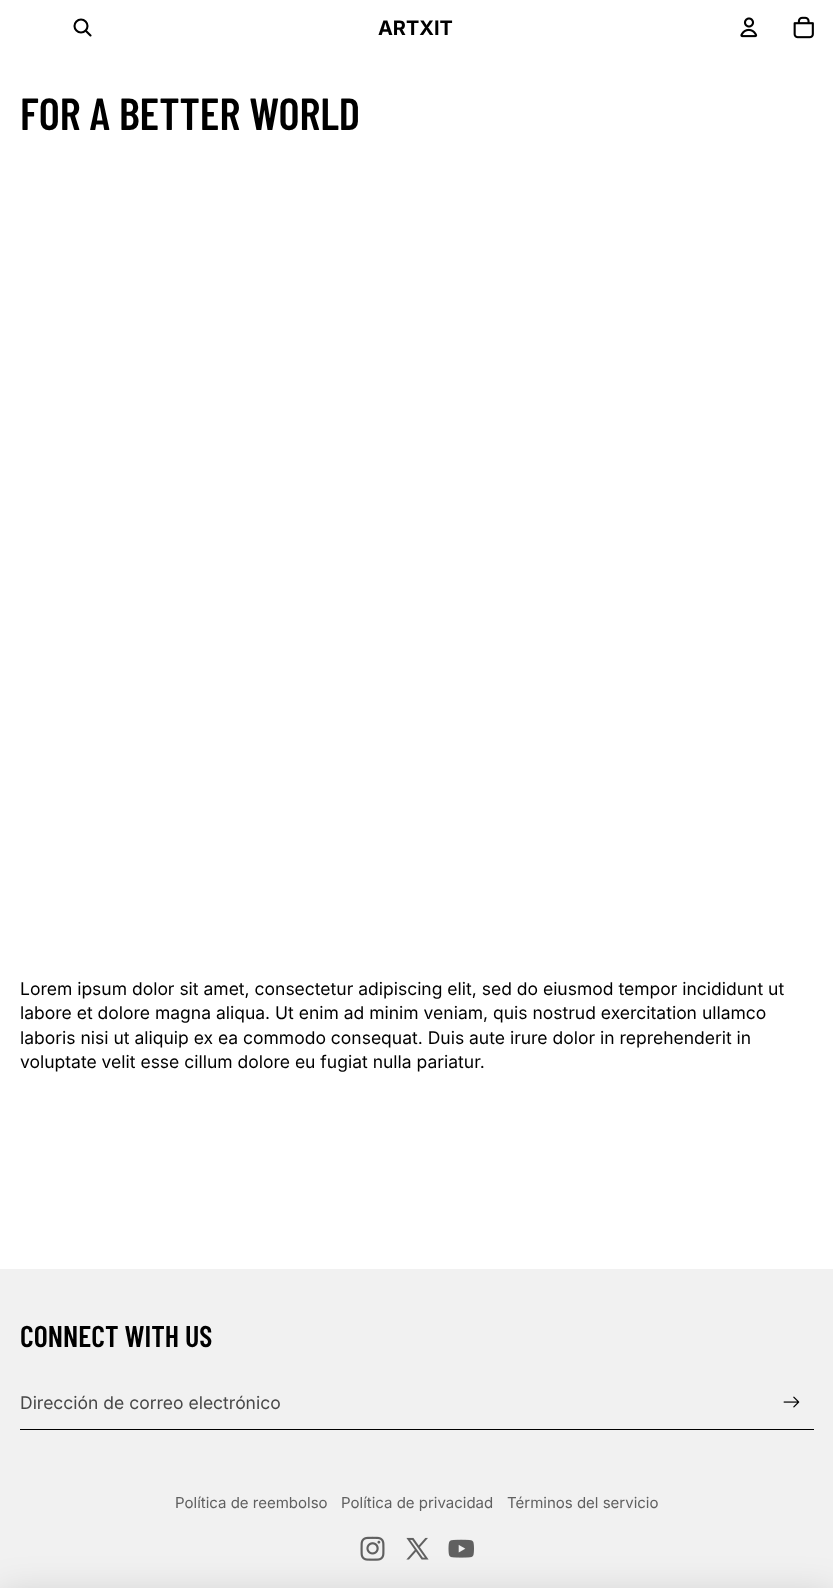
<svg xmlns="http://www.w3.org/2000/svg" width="833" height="1588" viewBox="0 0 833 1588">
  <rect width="100%" height="100%" fill="#fff"/>
  <circle cx="81" cy="26" r="6.5" fill="none" stroke="#000" stroke-width="2.1"/>
  <path d="M86 31L90.5 35.5" fill="none" stroke="#000" stroke-width="2.1" stroke-linecap="round" stroke-linejoin="round"/>
  <image x="740" y="17" width="18" height="21" href="img/1.png"/>
  <image x="793" y="16" width="21" height="23" href="img/2.png"/>
  <path d="M0 1269h833v319H0z" fill="#f1f1f1"/>
  <path d="M20 1429V1430H814V1376V1429Z" fill="#000"/>
  <image x="783" y="1396" width="17" height="12" href="img/3.png"/>
  <path d="M0 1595h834v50H0z" fill="#00000026" filter="blur(19px)"/>
  <image x="360" y="1536" width="25" height="25" href="img/4.png"/>
  <image x="406" y="1537" width="23" height="23" href="img/5.png"/>
  <image x="448" y="1539" width="26" height="19" href="img/6.png"/>
  <text x="378" y="35" font-family="Inter" font-size="20" font-weight="bold" fill="#000">ARTXIT</text>
  <text x="20" y="130" font-family="Barlow Condensed" font-size="45" font-weight="600" fill="#000">FOR A BETTER WORLD</text>
  <g font-family="Inter" font-size="17.5" fill="#000">
    <text x="20" y="995">Lorem ipsum dolor sit amet, consectetur adipiscing elit, sed do eiusmod tempor incididunt ut</text>
    <text x="20" y="1019">labore et dolore magna aliqua. Ut enim ad minim veniam, quis nostrud exercitation ullamco</text>
    <text x="20" y="1044">laboris nisi ut aliquip ex ea commodo consequat. Duis aute irure dolor in reprehenderit in</text>
    <text x="20" y="1068">voluptate velit esse cillum dolore eu fugiat nulla pariatur.</text>
  </g>
  <text x="20" y="1347" font-family="Barlow Condensed" font-size="30" font-weight="600" fill="#000">CONNECT WITH US</text>
  <text x="20" y="1409" font-family="Inter" font-size="17.5" fill="#484848">Dirección de correo electrónico</text>
  <g font-family="Inter" font-size="15" fill="#606060">
    <text x="175" y="1508">Política de reembolso</text>
    <text x="341" y="1508">Política de privacidad</text>
    <text x="507" y="1508">Términos del servicio</text>
  </g>
</svg>
